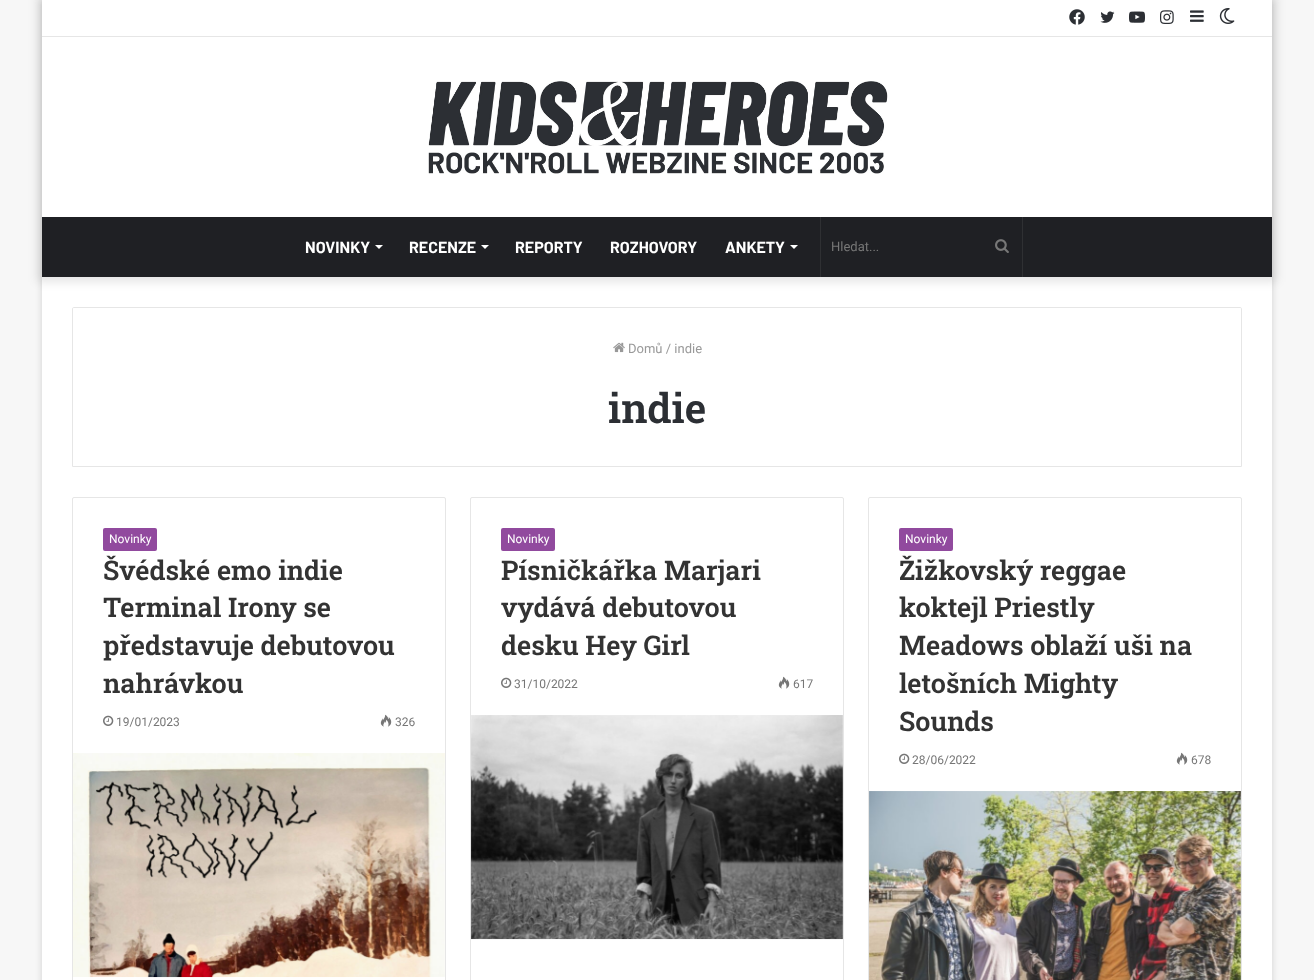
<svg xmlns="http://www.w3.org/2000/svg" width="1314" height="980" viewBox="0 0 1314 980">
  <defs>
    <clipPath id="clip1"><path d="M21 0H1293V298H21ZM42 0H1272V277H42Z" clip-rule="evenodd"/></clipPath>
  </defs>
  <rect width="100%" height="100%" fill="#f7f7f7"/>
  <path d="M42 1h1230v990H42z" fill="#ababab80" filter="blur(3.5px)"/>
  <path d="M42 0h1230v980H42z" fill="#fff"/>
  <g clip-path="url(#clip1)">
    <path d="M37 -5h1240v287H37z" fill="#0000001a" filter="blur(5px)"/>
  </g>
  <path d="M42 36h1230v1H42z" fill="#e6e6e6"/>
  <image x="1069" y="9" width="16" height="16" href="img/1.png"/>
  <image x="1100" y="11" width="15" height="12" href="img/2.png"/>
  <image x="1129" y="11" width="16" height="12" href="img/3.png"/>
  <image x="1160" y="10" width="14" height="14" href="img/4.png"/>
  <image x="1190" y="10" width="14" height="12" href="img/5.png"/>
  <image x="1219" y="8" width="16" height="16" href="img/6.png"/>
  <image x="428" y="81" width="460" height="93" href="img/7.png"/>
  <path d="M42 217h1230v60H42z" fill="#1f2024"/>
  <path d="M375 245H383L379 249Z" fill="#fff"/>
  <path d="M481 245H489L485 249Z" fill="#fff"/>
  <path d="M790 245H798L794 249Z" fill="#fff"/>
  <path d="M1022 217h1v60H1022z" fill="#2f3033"/>
  <path d="M820 217h1v60H820z" fill="#2f3033"/>
  <image x="995" y="239" width="14" height="14" href="img/8.png"/>
  <path d="M74 307.5H1240C1241 307.5 1241.5 308 1241.5 309V466.5H72.5V309C72.5 308 73 307.5 74 307.5Z" fill="none" stroke="#e6e6e6"/>
  <image x="613" y="342" width="12" height="11" href="img/9.png"/>
  <rect x="72.5" y="497.5" width="373" height="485" rx="1.5" fill="none" stroke="#e6e6e6"/>
  <rect x="103" y="528" width="54" height="23" rx="2" fill="#914a9e"/>
  <image x="103" y="715" width="11" height="11" href="img/10.png"/>
  <image x="380" y="714" width="12" height="13" href="img/11.png"/>
  <image x="73" y="753" width="372" height="225" href="img/12.png"/>
  <rect x="470.5" y="497.5" width="373" height="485" rx="1.5" fill="none" stroke="#e6e6e6"/>
  <rect x="501" y="528" width="54" height="23" rx="2" fill="#914a9e"/>
  <image x="501" y="677" width="11" height="11" href="img/10.png"/>
  <image x="778" y="676" width="12" height="13" href="img/11.png"/>
  <image x="471" y="715" width="372" height="225" href="img/13.png"/>
  <rect x="868.5" y="497.5" width="373" height="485" rx="1.5" fill="none" stroke="#e6e6e6"/>
  <rect x="899" y="528" width="54" height="23" rx="2" fill="#914a9e"/>
  <image x="899" y="753" width="11" height="11" href="img/10.png"/>
  <image x="1176" y="752" width="12" height="13" href="img/11.png"/>
  <image x="869" y="791" width="372" height="189" href="img/14.png"/>
  <g font-family="Barlow" font-size="16" font-weight="bold" fill="#fff">
    <text x="305" y="253">NOVINKY</text>
    <text x="409" y="253">RECENZE</text>
    <text x="515" y="253">REPORTY</text>
    <text x="610" y="253">ROZHOVORY</text>
    <text x="725" y="253">ANKETY</text>
  </g>
  <text x="831" y="251" font-family="Roboto" font-size="13" fill="#767676">Hledat...</text>
  <text x="628" y="353" font-family="Roboto" font-size="13" fill="#999">Domů / indie</text>
  <text x="608" y="423" font-family="Roboto Slab" font-size="41" font-weight="600" fill="#2c2f34">indie</text>
  <text x="109" y="543" font-family="Roboto" font-size="12" fill="#fff">Novinky</text>
  <g font-family="Roboto Slab" font-size="27" font-weight="600" fill="#333">
    <text x="103" y="580">Švédské emo indie</text>
    <text x="103" y="617">Terminal Irony se</text>
    <text x="103" y="655">představuje debutovou</text>
    <text x="103" y="693">nahrávkou</text>
  </g>
  <g font-family="Roboto" font-size="12" fill="#767676">
    <text x="116" y="726">19/01/2023</text>
    <text x="395" y="726">326</text>
  </g>
  <text x="507" y="543" font-family="Roboto" font-size="12" fill="#fff">Novinky</text>
  <g font-family="Roboto Slab" font-size="27" font-weight="600" fill="#333">
    <text x="501" y="580">Písničkářka Marjari</text>
    <text x="501" y="617">vydává debutovou</text>
    <text x="501" y="655">desku Hey Girl</text>
  </g>
  <g font-family="Roboto" font-size="12" fill="#767676">
    <text x="514" y="688">31/10/2022</text>
    <text x="793" y="688">617</text>
  </g>
  <text x="905" y="543" font-family="Roboto" font-size="12" fill="#fff">Novinky</text>
  <g font-family="Roboto Slab" font-size="27" font-weight="600" fill="#333">
    <text x="899" y="580">Žižkovský reggae</text>
    <text x="899" y="617">koktejl Priestly</text>
    <text x="899" y="655">Meadows oblaží uši na</text>
    <text x="899" y="693">letošních Mighty</text>
    <text x="899" y="731">Sounds</text>
  </g>
  <g font-family="Roboto" font-size="12" fill="#767676">
    <text x="912" y="764">28/06/2022</text>
    <text x="1191" y="764">678</text>
  </g>
</svg>
